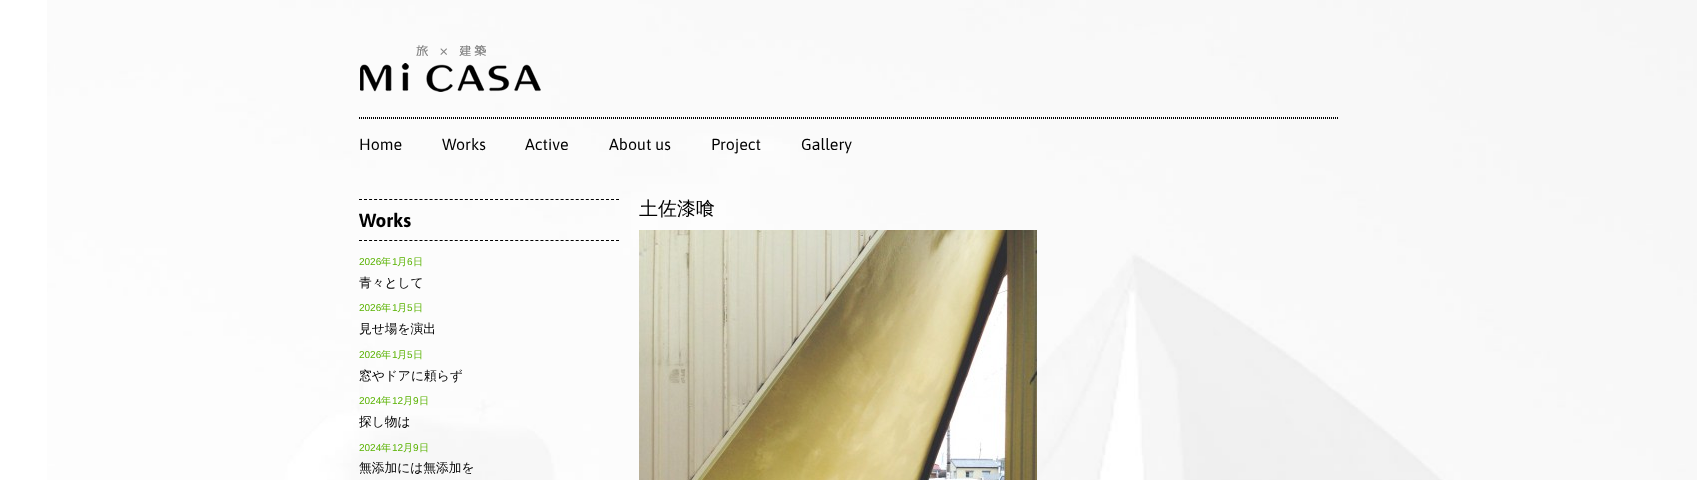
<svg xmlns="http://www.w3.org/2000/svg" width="1697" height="480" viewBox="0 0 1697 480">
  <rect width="100%" height="100%" fill="#fff"/>
  <image x="47" y="0" width="1650" height="480" href="img/1.png"/>
  <image x="360" y="45" width="181" height="47" href="img/2.png"/>
  <path d="M359 117.5H1339" fill="none" stroke="#000" stroke-dasharray="1 1"/>
  <path d="M359 118.5H1339" fill="none" stroke="#000" stroke-dasharray="1 1"/>
  <image x="639" y="230" width="398" height="250" href="img/3.png"/>
  <path d="M359 199.5H619" fill="none" stroke="#000" stroke-dasharray="3 2.04"/>
  <path d="M359 240.5H619" fill="none" stroke="#000" stroke-dasharray="3 2.04"/>
  <g font-family="Asap" font-size="16" fill="#000">
    <text x="359" y="150">Home</text>
    <text x="442" y="150">Works</text>
    <text x="525" y="150">Active</text>
    <text x="609" y="150">About us</text>
    <text x="711" y="150">Project</text>
    <text x="801" y="150">Gallery</text>
  </g>
  <text x="639" y="215" font-family="WenQuanYi Zen Hei" font-size="19" font-weight="500" fill="#000">土佐漆喰</text>
  <text x="359" y="227" font-family="Asap" font-size="19" font-weight="bold" fill="#000">Works</text>
  <text x="359" y="265" font-family="Liberation Sans" font-size="10" fill="#59b200">2026</text>
  <text x="381" y="265" font-family="WenQuanYi Zen Hei" font-size="10" font-weight="500" fill="#59b200">年</text>
  <text x="392" y="265" font-family="Liberation Sans" font-size="10" fill="#59b200">1</text>
  <text x="397" y="265" font-family="WenQuanYi Zen Hei" font-size="10" font-weight="500" fill="#59b200">月</text>
  <text x="407" y="265" font-family="Liberation Sans" font-size="10" fill="#59b200">6</text>
  <text x="413" y="265" font-family="WenQuanYi Zen Hei" font-size="10" font-weight="500" fill="#59b200">日</text>
  <text x="359" y="287" font-family="WenQuanYi Zen Hei" font-size="12.75" font-weight="500" fill="#000">青々として</text>
  <text x="359" y="311" font-family="Liberation Sans" font-size="10" fill="#59b200">2026</text>
  <text x="381" y="311" font-family="WenQuanYi Zen Hei" font-size="10" font-weight="500" fill="#59b200">年</text>
  <text x="392" y="311" font-family="Liberation Sans" font-size="10" fill="#59b200">1</text>
  <text x="397" y="311" font-family="WenQuanYi Zen Hei" font-size="10" font-weight="500" fill="#59b200">月</text>
  <text x="407" y="311" font-family="Liberation Sans" font-size="10" fill="#59b200">5</text>
  <text x="413" y="311" font-family="WenQuanYi Zen Hei" font-size="10" font-weight="500" fill="#59b200">日</text>
  <text x="359" y="333" font-family="WenQuanYi Zen Hei" font-size="12.75" font-weight="500" fill="#000">見せ場を演出</text>
  <text x="359" y="358" font-family="Liberation Sans" font-size="10" fill="#59b200">2026</text>
  <text x="381" y="358" font-family="WenQuanYi Zen Hei" font-size="10" font-weight="500" fill="#59b200">年</text>
  <text x="392" y="358" font-family="Liberation Sans" font-size="10" fill="#59b200">1</text>
  <text x="397" y="358" font-family="WenQuanYi Zen Hei" font-size="10" font-weight="500" fill="#59b200">月</text>
  <text x="407" y="358" font-family="Liberation Sans" font-size="10" fill="#59b200">5</text>
  <text x="413" y="358" font-family="WenQuanYi Zen Hei" font-size="10" font-weight="500" fill="#59b200">日</text>
  <text x="359" y="380" font-family="WenQuanYi Zen Hei" font-size="12.75" font-weight="500" fill="#000">窓やドアに頼らず</text>
  <text x="359" y="404" font-family="Liberation Sans" font-size="10" fill="#59b200">2024</text>
  <text x="381" y="404" font-family="WenQuanYi Zen Hei" font-size="10" font-weight="500" fill="#59b200">年</text>
  <text x="392" y="404" font-family="Liberation Sans" font-size="10" fill="#59b200">12</text>
  <text x="403" y="404" font-family="WenQuanYi Zen Hei" font-size="10" font-weight="500" fill="#59b200">月</text>
  <text x="413" y="404" font-family="Liberation Sans" font-size="10" fill="#59b200">9</text>
  <text x="419" y="404" font-family="WenQuanYi Zen Hei" font-size="10" font-weight="500" fill="#59b200">日</text>
  <text x="359" y="426" font-family="WenQuanYi Zen Hei" font-size="12.75" font-weight="500" fill="#000">探し物は</text>
  <text x="359" y="451" font-family="Liberation Sans" font-size="10" fill="#59b200">2024</text>
  <text x="381" y="451" font-family="WenQuanYi Zen Hei" font-size="10" font-weight="500" fill="#59b200">年</text>
  <text x="392" y="451" font-family="Liberation Sans" font-size="10" fill="#59b200">12</text>
  <text x="403" y="451" font-family="WenQuanYi Zen Hei" font-size="10" font-weight="500" fill="#59b200">月</text>
  <text x="413" y="451" font-family="Liberation Sans" font-size="10" fill="#59b200">9</text>
  <text x="419" y="451" font-family="WenQuanYi Zen Hei" font-size="10" font-weight="500" fill="#59b200">日</text>
  <text x="359" y="472" font-family="WenQuanYi Zen Hei" font-size="12.75" font-weight="500" fill="#000">無添加には無添加を</text>
</svg>
